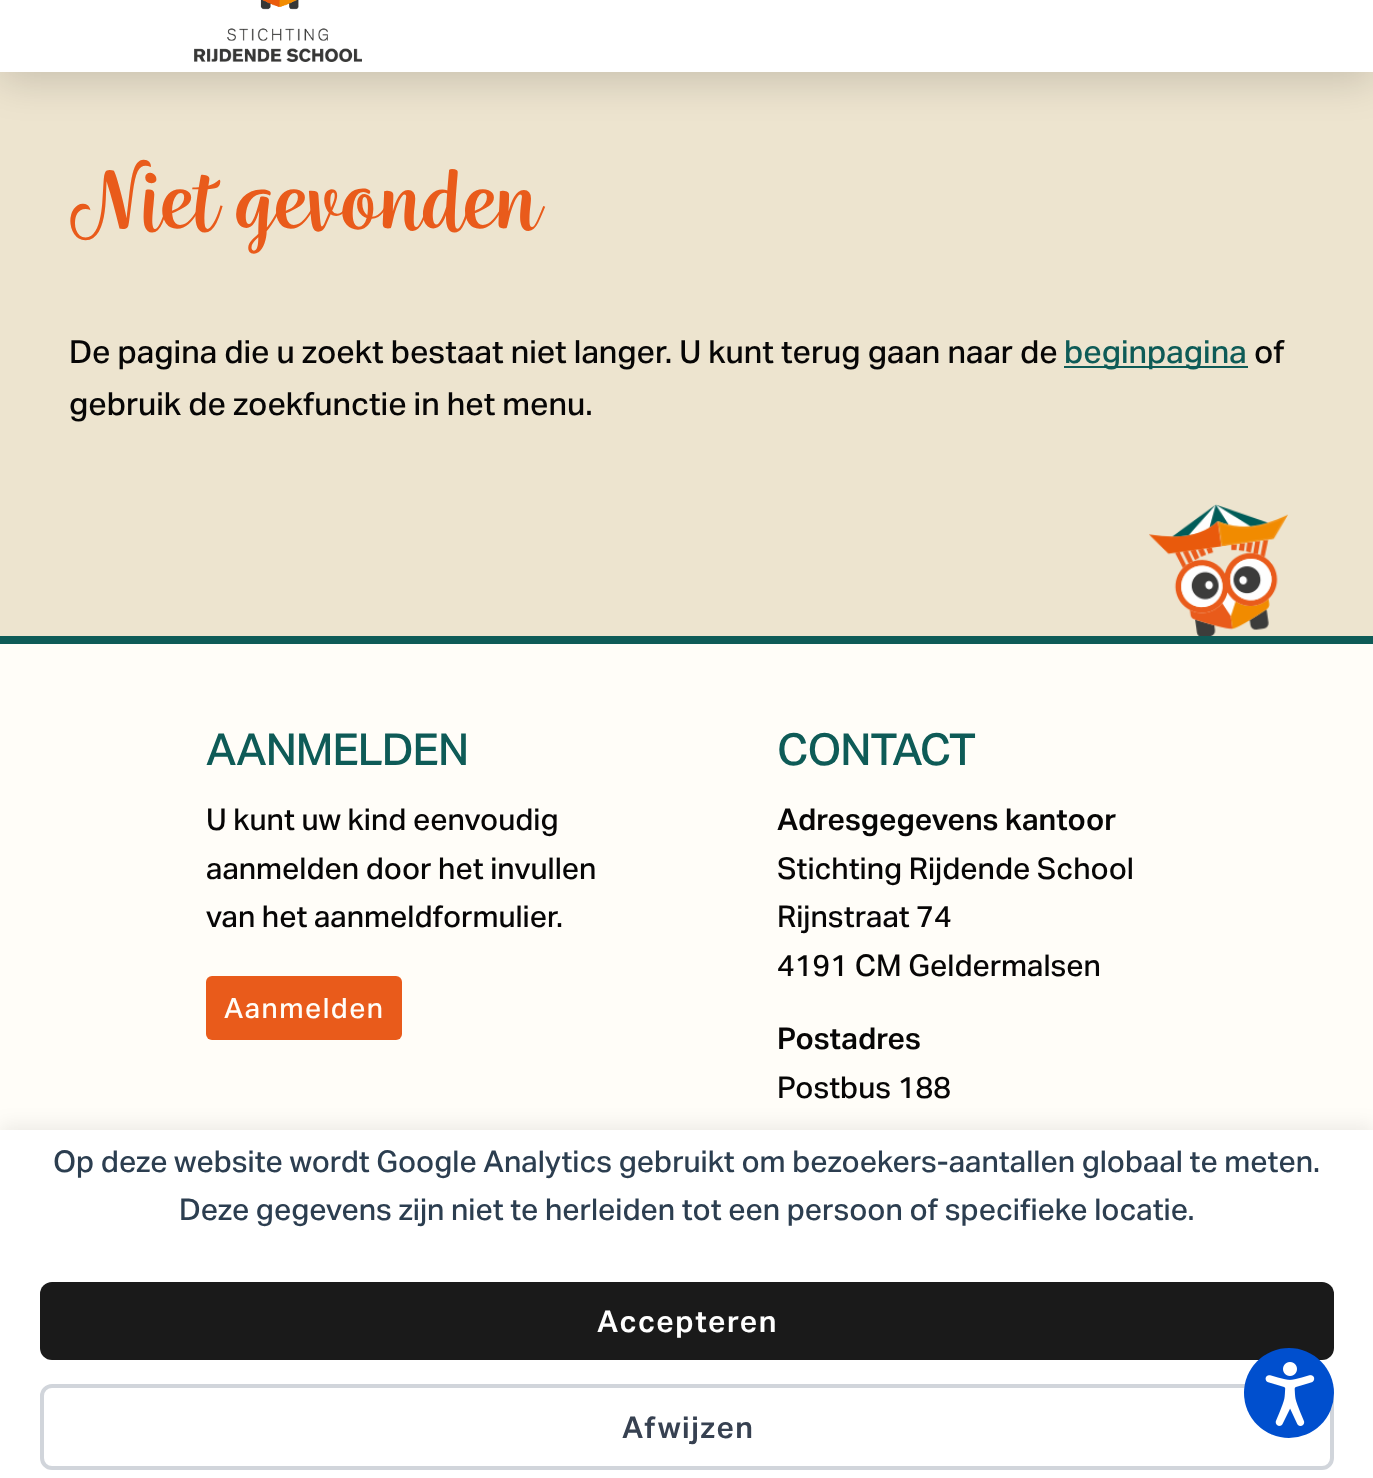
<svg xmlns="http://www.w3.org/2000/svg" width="1373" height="1478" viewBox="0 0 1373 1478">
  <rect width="100%" height="100%" fill="#ede4cf"/>
  <path d="M0 -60h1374v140H0z" fill="#00000029" filter="blur(20px)"/>
  <path d="M0 0h1373v72H0z" fill="#fff"/>
  <image x="194" y="0" width="168" height="62" href="img/1.png"/>
  <image x="1149" y="504" width="139" height="132" href="img/2.png"/>
  <path d="M1064 366h184v2H1064z" fill="#0e5b57"/>
  <path d="M0 644h1373v486H0z" fill="#fffdf8"/>
  <path d="M0 636h1373v8H0z" fill="#0e5b57"/>
  <rect x="206" y="976" width="196" height="64" rx="6" fill="#e95b1b"/>
  <path d="M0 1126h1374v348H0z" fill="#00000014" filter="blur(10px)"/>
  <path d="M0 1130h1373v348H0z" fill="#fff"/>
  <rect x="40" y="1282" width="1294" height="78" rx="12" fill="#1a1a1a"/>
  <rect x="42" y="1386" width="1290" height="82" rx="10" fill="none" stroke="#d1d5db" stroke-width="4"/>
  <circle cx="1289" cy="1393" r="45" fill="#004fce"/>
  <image x="1265" y="1362" width="50" height="64" href="img/3.png"/>
  <text x="69" y="228" word-spacing="3" font-family="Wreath" font-size="96" font-weight="600" letter-spacing="-1" fill="#e95b1b">Niet gevonden</text>
  <text x="69" y="363" font-family="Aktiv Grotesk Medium" font-size="32" font-weight="500" fill="#070606">De pagina die u zoekt bestaat niet langer. U kunt terug gaan naar de</text>
  <text x="1064" y="363" font-family="Aktiv Grotesk Medium" font-size="32" font-weight="500" fill="#0e5b57">beginpagina</text>
  <g font-family="Aktiv Grotesk Medium" font-size="32" font-weight="500" fill="#070606">
    <text x="1254" y="363">of</text>
    <text x="69" y="415">gebruik de zoekfunctie in het menu.</text>
  </g>
  <text x="206" y="765" font-family="Aktiv Grotesk Medium" font-size="44" font-weight="500" letter-spacing="-1" fill="#0e5b57">AANMELDEN</text>
  <g font-family="Aktiv Grotesk Medium" font-size="30" font-weight="500" fill="#070606">
    <text x="206" y="830">U kunt uw kind eenvoudig</text>
    <text x="206" y="879">aanmelden door het invullen</text>
    <text x="206" y="927">van het aanmeldformulier.</text>
  </g>
  <text x="224" y="1018" font-family="Aktiv Grotesk Medium" font-size="28" font-weight="500" letter-spacing="1.5" fill="#fffdf8">Aanmelden</text>
  <text x="777" y="765" font-family="Aktiv Grotesk Medium" font-size="44" font-weight="500" letter-spacing="-1" fill="#0e5b57">CONTACT</text>
  <text x="777" y="830" font-family="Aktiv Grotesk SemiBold" font-size="30" font-weight="600" fill="#070606">Adresgegevens kantoor</text>
  <g font-family="Aktiv Grotesk Medium" font-size="30" font-weight="500" fill="#070606">
    <text x="777" y="879">Stichting Rijdende School</text>
    <text x="777" y="927">Rijnstraat 74</text>
    <text x="777" y="976">4191 CM Geldermalsen</text>
  </g>
  <text x="777" y="1049" font-family="Aktiv Grotesk SemiBold" font-size="30" font-weight="600" fill="#070606">Postadres</text>
  <text x="777" y="1098" font-family="Aktiv Grotesk Medium" font-size="30" font-weight="500" fill="#070606">Postbus 188</text>
  <g font-family="Aktiv Grotesk Medium" font-size="30" font-weight="500" fill="#2c3e50">
    <text x="53" y="1172">Op deze website wordt Google Analytics gebruikt om bezoekers-aantallen globaal te meten.</text>
    <text x="179" y="1220">Deze gegevens zijn niet te herleiden tot een persoon of specifieke locatie.</text>
  </g>
  <text x="597" y="1332" font-family="Aktiv Grotesk SemiBold" font-size="30" font-weight="600" letter-spacing="1.5" fill="#fff">Accepteren</text>
  <text x="622" y="1438" font-family="Aktiv Grotesk SemiBold" font-size="30" font-weight="600" letter-spacing="1.5" fill="#374151">Afwijzen</text>
</svg>
